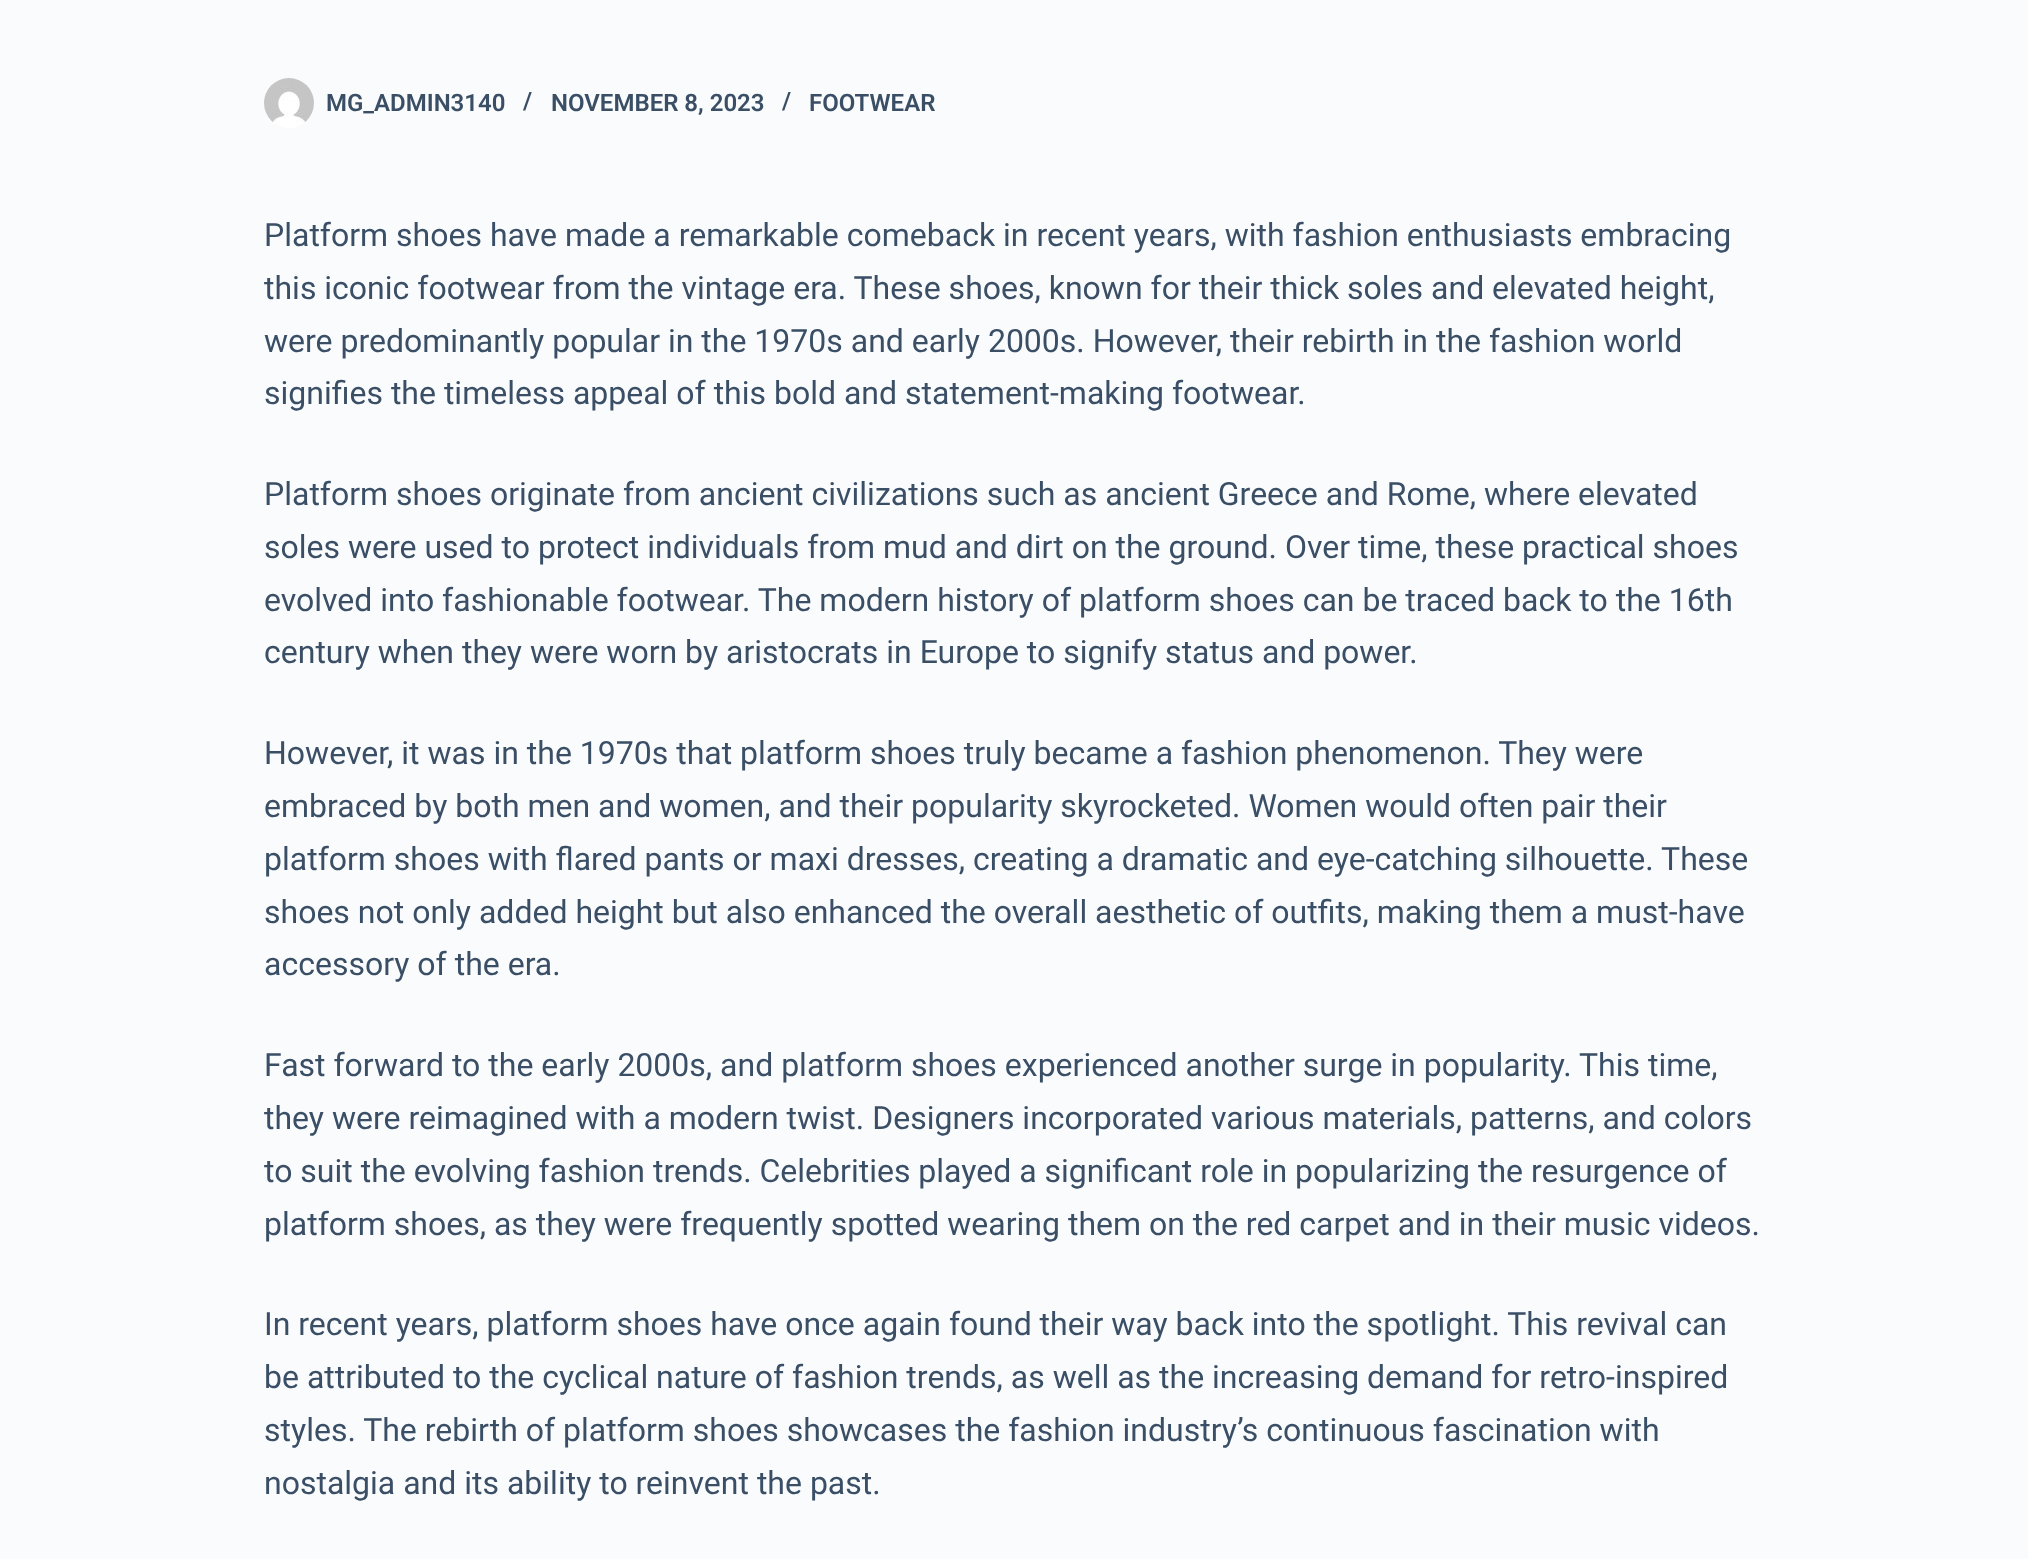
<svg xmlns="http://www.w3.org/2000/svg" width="2028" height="1559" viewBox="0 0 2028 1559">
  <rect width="100%" height="100%" fill="#fafbfc"/>
  <image x="264" y="78" width="50" height="50" href="img/1.png"/>
  <g font-family="Roboto" font-size="24" font-weight="600" fill="#3a4f66">
    <text x="326" y="111">MG_ADMIN3140</text>
    <text x="523" y="109">/</text>
    <text x="551" y="111">NOVEMBER 8, 2023</text>
    <text x="782" y="109">/</text>
    <text x="809" y="111">FOOTWEAR</text>
  </g>
  <g font-family="Roboto" font-size="32" fill="#3a4f66">
    <text x="264" y="246">Platform shoes have made a remarkable comeback in recent years, with fashion enthusiasts embracing</text>
    <text x="264" y="299">this iconic footwear from the vintage era. These shoes, known for their thick soles and elevated height,</text>
    <text x="264" y="352">were predominantly popular in the 1970s and early 2000s. However, their rebirth in the fashion world</text>
    <text x="264" y="404">signifies the timeless appeal of this bold and statement-making footwear.</text>
    <text x="264" y="505">Platform shoes originate from ancient civilizations such as ancient Greece and Rome, where elevated</text>
    <text x="264" y="558">soles were used to protect individuals from mud and dirt on the ground. Over time, these practical shoes</text>
    <text x="264" y="611">evolved into fashionable footwear. The modern history of platform shoes can be traced back to the 16th</text>
    <text x="264" y="663">century when they were worn by aristocrats in Europe to signify status and power.</text>
    <text x="264" y="764">However, it was in the 1970s that platform shoes truly became a fashion phenomenon. They were</text>
    <text x="264" y="817">embraced by both men and women, and their popularity skyrocketed. Women would often pair their</text>
    <text x="264" y="870">platform shoes with flared pants or maxi dresses, creating a dramatic and eye-catching silhouette. These</text>
    <text x="264" y="923">shoes not only added height but also enhanced the overall aesthetic of outfits, making them a must-have</text>
    <text x="264" y="975">accessory of the era.</text>
    <text x="264" y="1076">Fast forward to the early 2000s, and platform shoes experienced another surge in popularity. This time,</text>
    <text x="264" y="1129">they were reimagined with a modern twist. Designers incorporated various materials, patterns, and colors</text>
    <text x="264" y="1182">to suit the evolving fashion trends. Celebrities played a significant role in popularizing the resurgence of</text>
    <text x="264" y="1235">platform shoes, as they were frequently spotted wearing them on the red carpet and in their music videos.</text>
    <text x="264" y="1335">In recent years, platform shoes have once again found their way back into the spotlight. This revival can</text>
    <text x="264" y="1388">be attributed to the cyclical nature of fashion trends, as well as the increasing demand for retro-inspired</text>
    <text x="264" y="1441">styles. The rebirth of platform shoes showcases the fashion industry’s continuous fascination with</text>
    <text x="264" y="1494">nostalgia and its ability to reinvent the past.</text>
  </g>
</svg>
